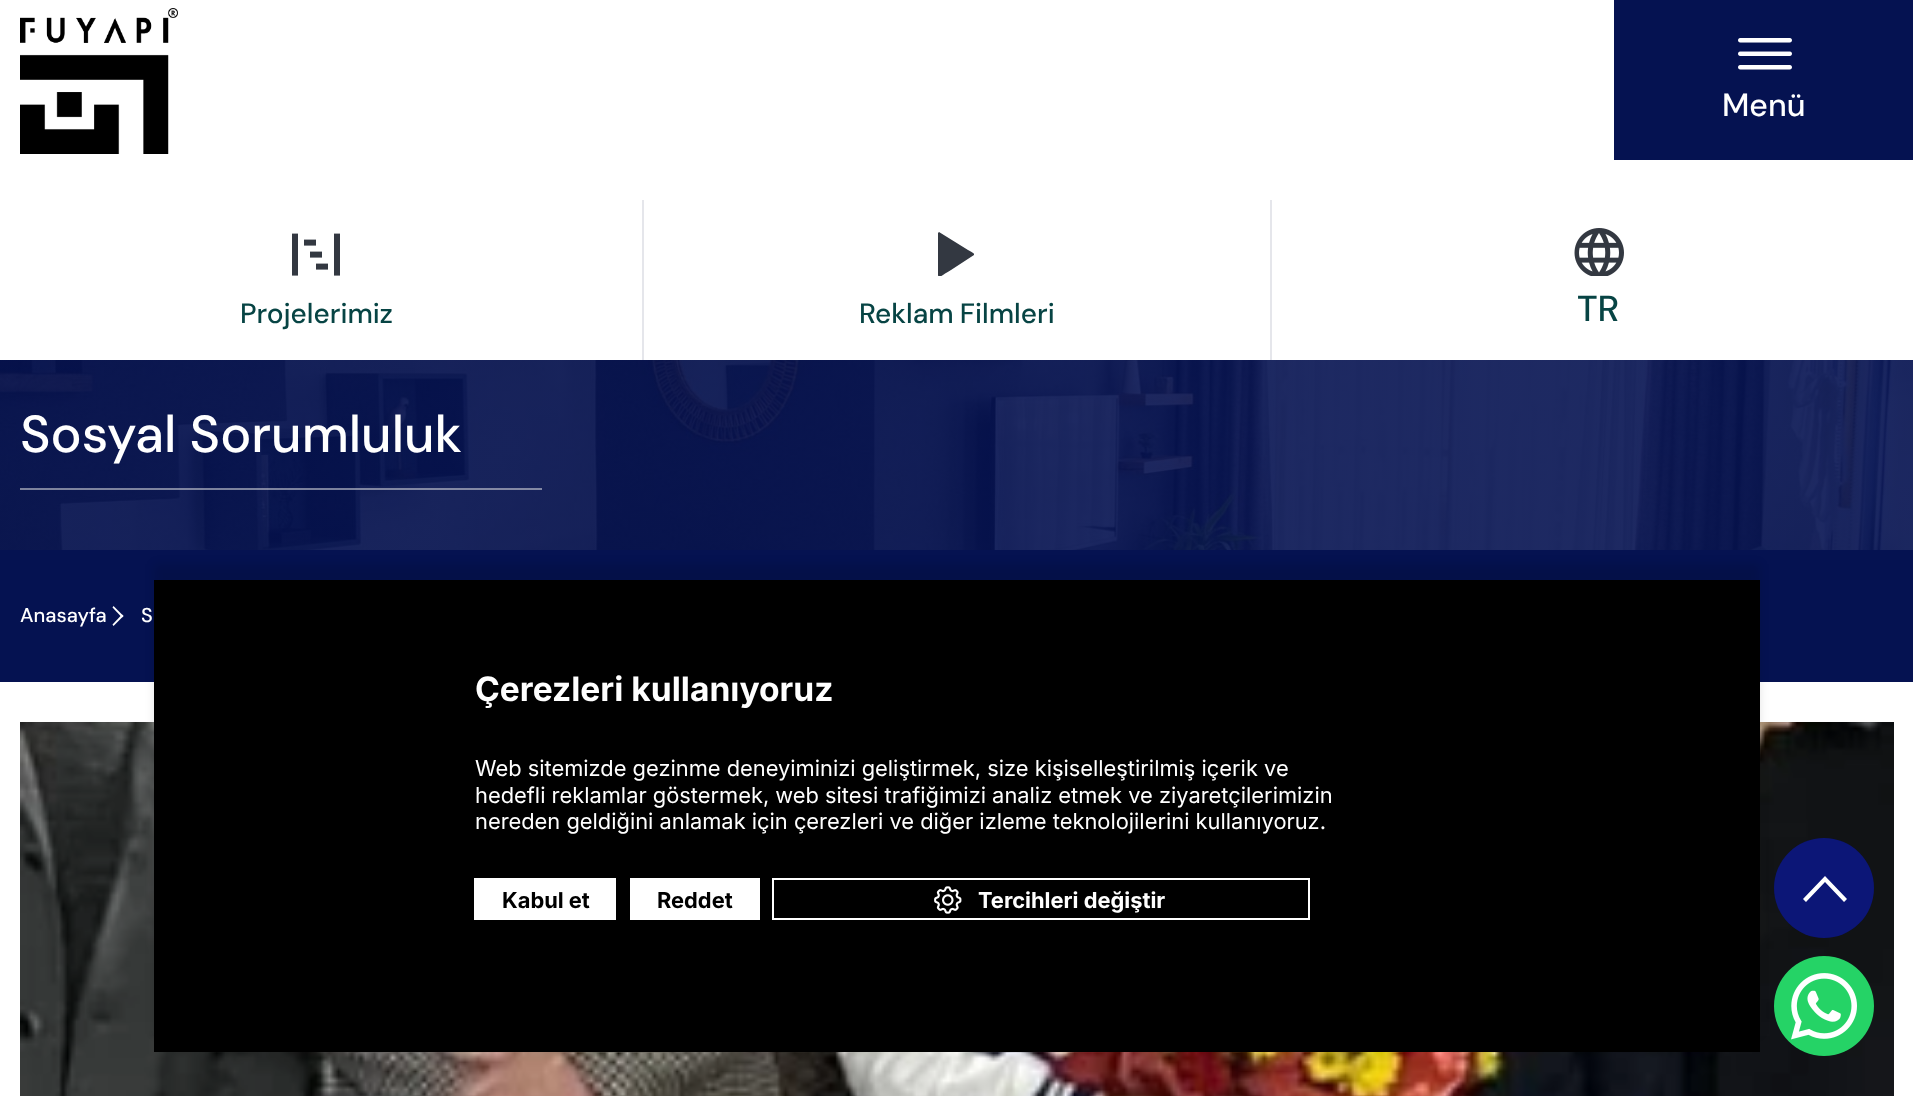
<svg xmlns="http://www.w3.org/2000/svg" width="1913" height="1096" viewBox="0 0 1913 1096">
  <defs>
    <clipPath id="clip1"><path d="M938 232h36v44H938z"/></clipPath>
  </defs>
  <rect width="100%" height="100%" fill="#fff"/>
  <image x="20" y="8" width="158" height="146" href="img/1.png"/>
  <path d="M1614 0h299v160H1614z" fill="#051251"/>
  <image x="1738" y="38" width="54" height="32" href="img/2.png"/>
  <image x="292" y="233" width="48" height="43" href="img/3.png"/>
  <path d="M1270 200h2v160H1270z" fill="#e5e6eb"/>
  <path d="M642 200h2v160H642z" fill="#e5e6eb"/>
  <g clip-path="url(#clip1)">
    <path d="M938 233V269C938 281 937 278 951 270L974 255C975 253 971 252 968 250L939 232Z" fill="#333841"/>
  </g>
  <image x="1574" y="228" width="50" height="48" href="img/4.png"/>
  <image x="0" y="360" width="1913" height="190" href="img/5.png"/>
  <path d="M20 488h522v2H20z" fill="#e8e8e885"/>
  <path d="M0 550h1913v132H0z" fill="#051251"/>
  <path d="M112.5 607.5L113.5 606L123.5 616L122 617.5Z" fill="#fff"/>
  <path d="M112.5 624.5L122 614.5L123.5 616L113.5 626Z" fill="#fff"/>
  <image x="20" y="722" width="1874" height="374" href="img/7.png"/>
  <circle cx="1824" cy="888" r="50" fill="#0c1677"/>
  <image x="1774" y="956" width="100" height="100" href="img/8.png"/>
  <path d="M154 564h1606v470H154z" fill="#0000001a" filter="blur(5px)"/>
  <path d="M154 580h1606v472H154z" fill="#000"/>
  <path d="M474 878h142v42H474z" fill="#fff"/>
  <path d="M630 878h130v42H630z" fill="#fff"/>
  <path d="M773 879h536v40H773z" fill="none" stroke="#fff" stroke-width="2"/>
  <image x="934" y="886" width="28" height="28" href="img/6.png"/>
  <path d="M1844 902L1847 899L1825 876L1803 899L1806 902L1825 882Z" fill="#fff"/>
  <text x="1722" y="116" font-family="DM Sans" font-size="32" font-weight="500" fill="#fff">Menü</text>
  <g font-family="DM Sans" font-size="28" font-weight="500" fill="#074444">
    <text x="240" y="323">Projelerimiz</text>
    <text x="859" y="323" word-spacing="-1">Reklam Filmleri</text>
  </g>
  <text x="1577" y="321" font-family="DM Sans" font-size="36" font-weight="500" fill="#074444">TR</text>
  <text x="20" y="452" font-family="DM Sans" font-size="52" font-weight="500" fill="#fff">Sosyal Sorumluluk</text>
  <g font-family="DM Sans" font-size="20" font-weight="500" fill="#fff">
    <text x="20" y="622">Anasayfa</text>
    <text x="141" y="622">S</text>
  </g>
  <text x="475" y="701" font-family="Inter" font-size="33.6" font-weight="bold" fill="#fff">Çerezleri kullanıyoruz</text>
  <g font-family="Inter" font-size="21.85" fill="#fff">
    <text x="475" y="776">Web sitemizde gezinme deneyiminizi geliştirmek, size kişiselleştirilmiş içerik ve</text>
    <text x="475" y="803">hedefli reklamlar göstermek, web sitesi trafiğimizi analiz etmek ve ziyaretçilerimizin</text>
    <text x="475" y="829">nereden geldiğini anlamak için çerezleri ve diğer izleme teknolojilerini kullanıyoruz.</text>
  </g>
  <g font-family="Inter" font-size="21.85" font-weight="bold" fill="#000">
    <text x="502" y="908">Kabul et</text>
    <text x="657" y="908">Reddet</text>
  </g>
  <text x="978" y="908" font-family="Inter" font-size="21.85" font-weight="bold" fill="#fff">Tercihleri değiştir</text>
</svg>
